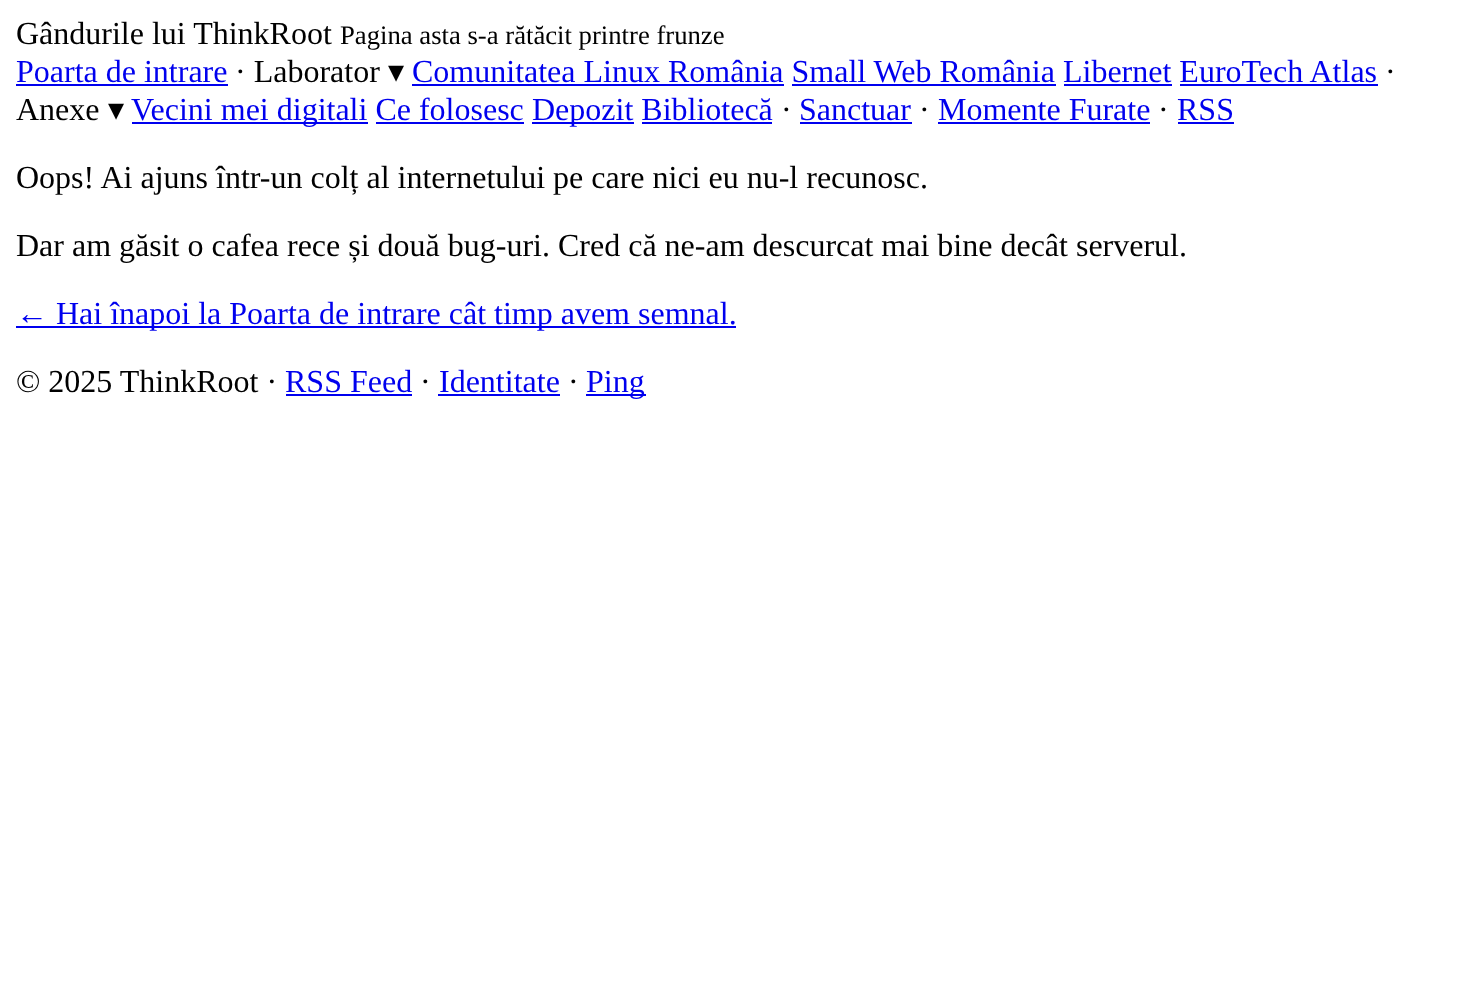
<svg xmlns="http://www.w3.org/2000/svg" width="1478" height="987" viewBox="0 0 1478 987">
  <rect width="100%" height="100%" fill="#fff"/>
  <path d="M16 84h212v2H16z" fill="#00e"/>
  <path d="M412 84h372v2H412z" fill="#00e"/>
  <path d="M792 84h264v2H792z" fill="#00e"/>
  <path d="M1064 84h108v2H1064z" fill="#00e"/>
  <path d="M1180 84h198v2H1180z" fill="#00e"/>
  <path d="M132 122h236v2H132z" fill="#00e"/>
  <path d="M376 122h148v2H376z" fill="#00e"/>
  <path d="M532 122h102v2H532z" fill="#00e"/>
  <path d="M642 122h130v2H642z" fill="#00e"/>
  <path d="M800 122h112v2H800z" fill="#00e"/>
  <path d="M938 122h212v2H938z" fill="#00e"/>
  <path d="M1178 122h56v2H1178z" fill="#00e"/>
  <path d="M16 326h720v2H16z" fill="#00e"/>
  <path d="M286 394h126v2H286z" fill="#00e"/>
  <path d="M438 394h122v2H438z" fill="#00e"/>
  <path d="M586 394h60v2H586z" fill="#00e"/>
  <text x="16" y="44" font-family="Liberation Serif" font-size="32" fill="#000">Gândurile lui ThinkRoot</text>
  <text x="340" y="44" font-family="Liberation Serif" font-size="26.7" fill="#000">Pagina asta s-a rătăcit printre frunze</text>
  <text x="16" y="82" font-family="Liberation Serif" font-size="32" fill="#00e">Poarta de intrare</text>
  <text x="235" y="82" font-family="Liberation Serif" font-size="32" fill="#000">· Laborator</text>
  <text x="388" y="82" font-family="DejaVu Sans" font-size="32" fill="#000">▾</text>
  <text x="412" y="82" font-family="Liberation Serif" font-size="32" fill="#00e">Comunitatea Linux România Small Web România Libernet EuroTech Atlas</text>
  <g font-family="Liberation Serif" font-size="32" fill="#000">
    <text x="1385" y="82">·</text>
    <text x="16" y="120">Anexe</text>
  </g>
  <text x="108" y="120" font-family="DejaVu Sans" font-size="32" fill="#000">▾</text>
  <g font-family="Liberation Serif" font-size="32" fill="#00e">
    <text x="131" y="120">Vecini mei digitali Ce folosesc</text>
    <text x="532" y="120">Depozit Bibliotecă</text>
  </g>
  <text x="781" y="120" font-family="Liberation Serif" font-size="32" fill="#000">·</text>
  <text x="799" y="120" font-family="Liberation Serif" font-size="32" fill="#00e">Sanctuar</text>
  <text x="919" y="120" font-family="Liberation Serif" font-size="32" fill="#000">·</text>
  <text x="938" y="120" font-family="Liberation Serif" font-size="32" fill="#00e">Momente Furate</text>
  <text x="1158" y="120" font-family="Liberation Serif" font-size="32" fill="#000">·</text>
  <text x="1177" y="120" font-family="Liberation Serif" font-size="32" fill="#00e">RSS</text>
  <g font-family="Liberation Serif" font-size="32" fill="#000">
    <text x="16" y="188">Oops! Ai ajuns într-un colț al internetului pe care nici eu nu-l recunosc.</text>
    <text x="16" y="256">Dar am găsit o cafea rece și două bug-uri. Cred că ne-am descurcat mai bine decât serverul.</text>
  </g>
  <text x="16" y="324" font-family="Liberation Serif" font-size="32" fill="#00e">← Hai înapoi la Poarta de intrare cât timp avem semnal.</text>
  <text x="16" y="392" font-family="Liberation Serif" font-size="32" fill="#000">© 2025 ThinkRoot ·</text>
  <text x="285" y="392" font-family="Liberation Serif" font-size="32" fill="#00e">RSS Feed</text>
  <text x="420" y="392" font-family="Liberation Serif" font-size="32" fill="#000">·</text>
  <text x="439" y="392" font-family="Liberation Serif" font-size="32" fill="#00e">Identitate</text>
  <text x="568" y="392" font-family="Liberation Serif" font-size="32" fill="#000">·</text>
  <text x="586" y="392" font-family="Liberation Serif" font-size="32" fill="#00e">Ping</text>
</svg>
